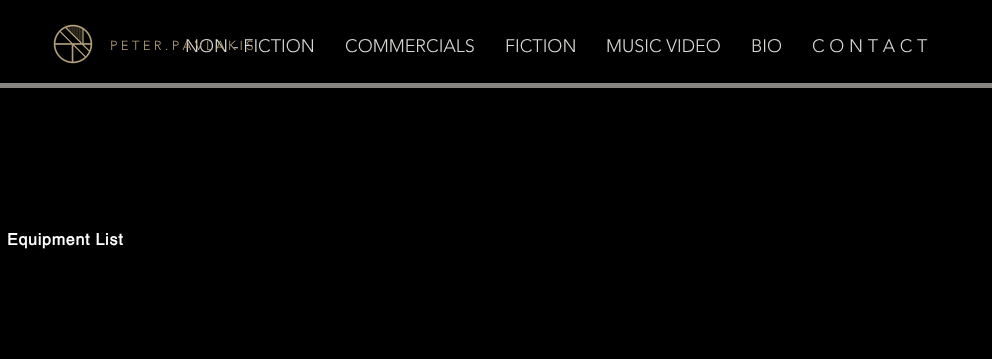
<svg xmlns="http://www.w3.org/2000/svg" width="992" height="359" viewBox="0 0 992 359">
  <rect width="100%" height="100%" fill="#000"/>
  <image x="53" y="24" width="40" height="40" href="img/1.png"/>
  <path d="M0 83h992v5H0z" fill="#87837e"/>
  <text x="185" y="52" font-family="'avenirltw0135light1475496'" font-size="18" font-weight="300" fill="#dbd9d7">NON - FICTION</text>
  <text x="110" y="50" font-family="'avenirltw0135light1475496'" font-size="13" font-weight="300" fill="#b39f79">P E T E R . P A V L A K I S</text>
  <g font-family="'avenirltw0135light1475496'" font-size="18" font-weight="300" fill="#dbd9d7">
    <text x="345" y="52">COMMERCIALS</text>
    <text x="505" y="52">FICTION</text>
    <text x="606" y="52">MUSIC VIDEO</text>
    <text x="751" y="52">BIO</text>
    <text x="812" y="52">C O N T A C T</text>
  </g>
  <text x="7" y="245" font-family="helvetica" font-size="16" font-weight="bold" letter-spacing="0.75" fill="#fff">Equipment List</text>
</svg>
